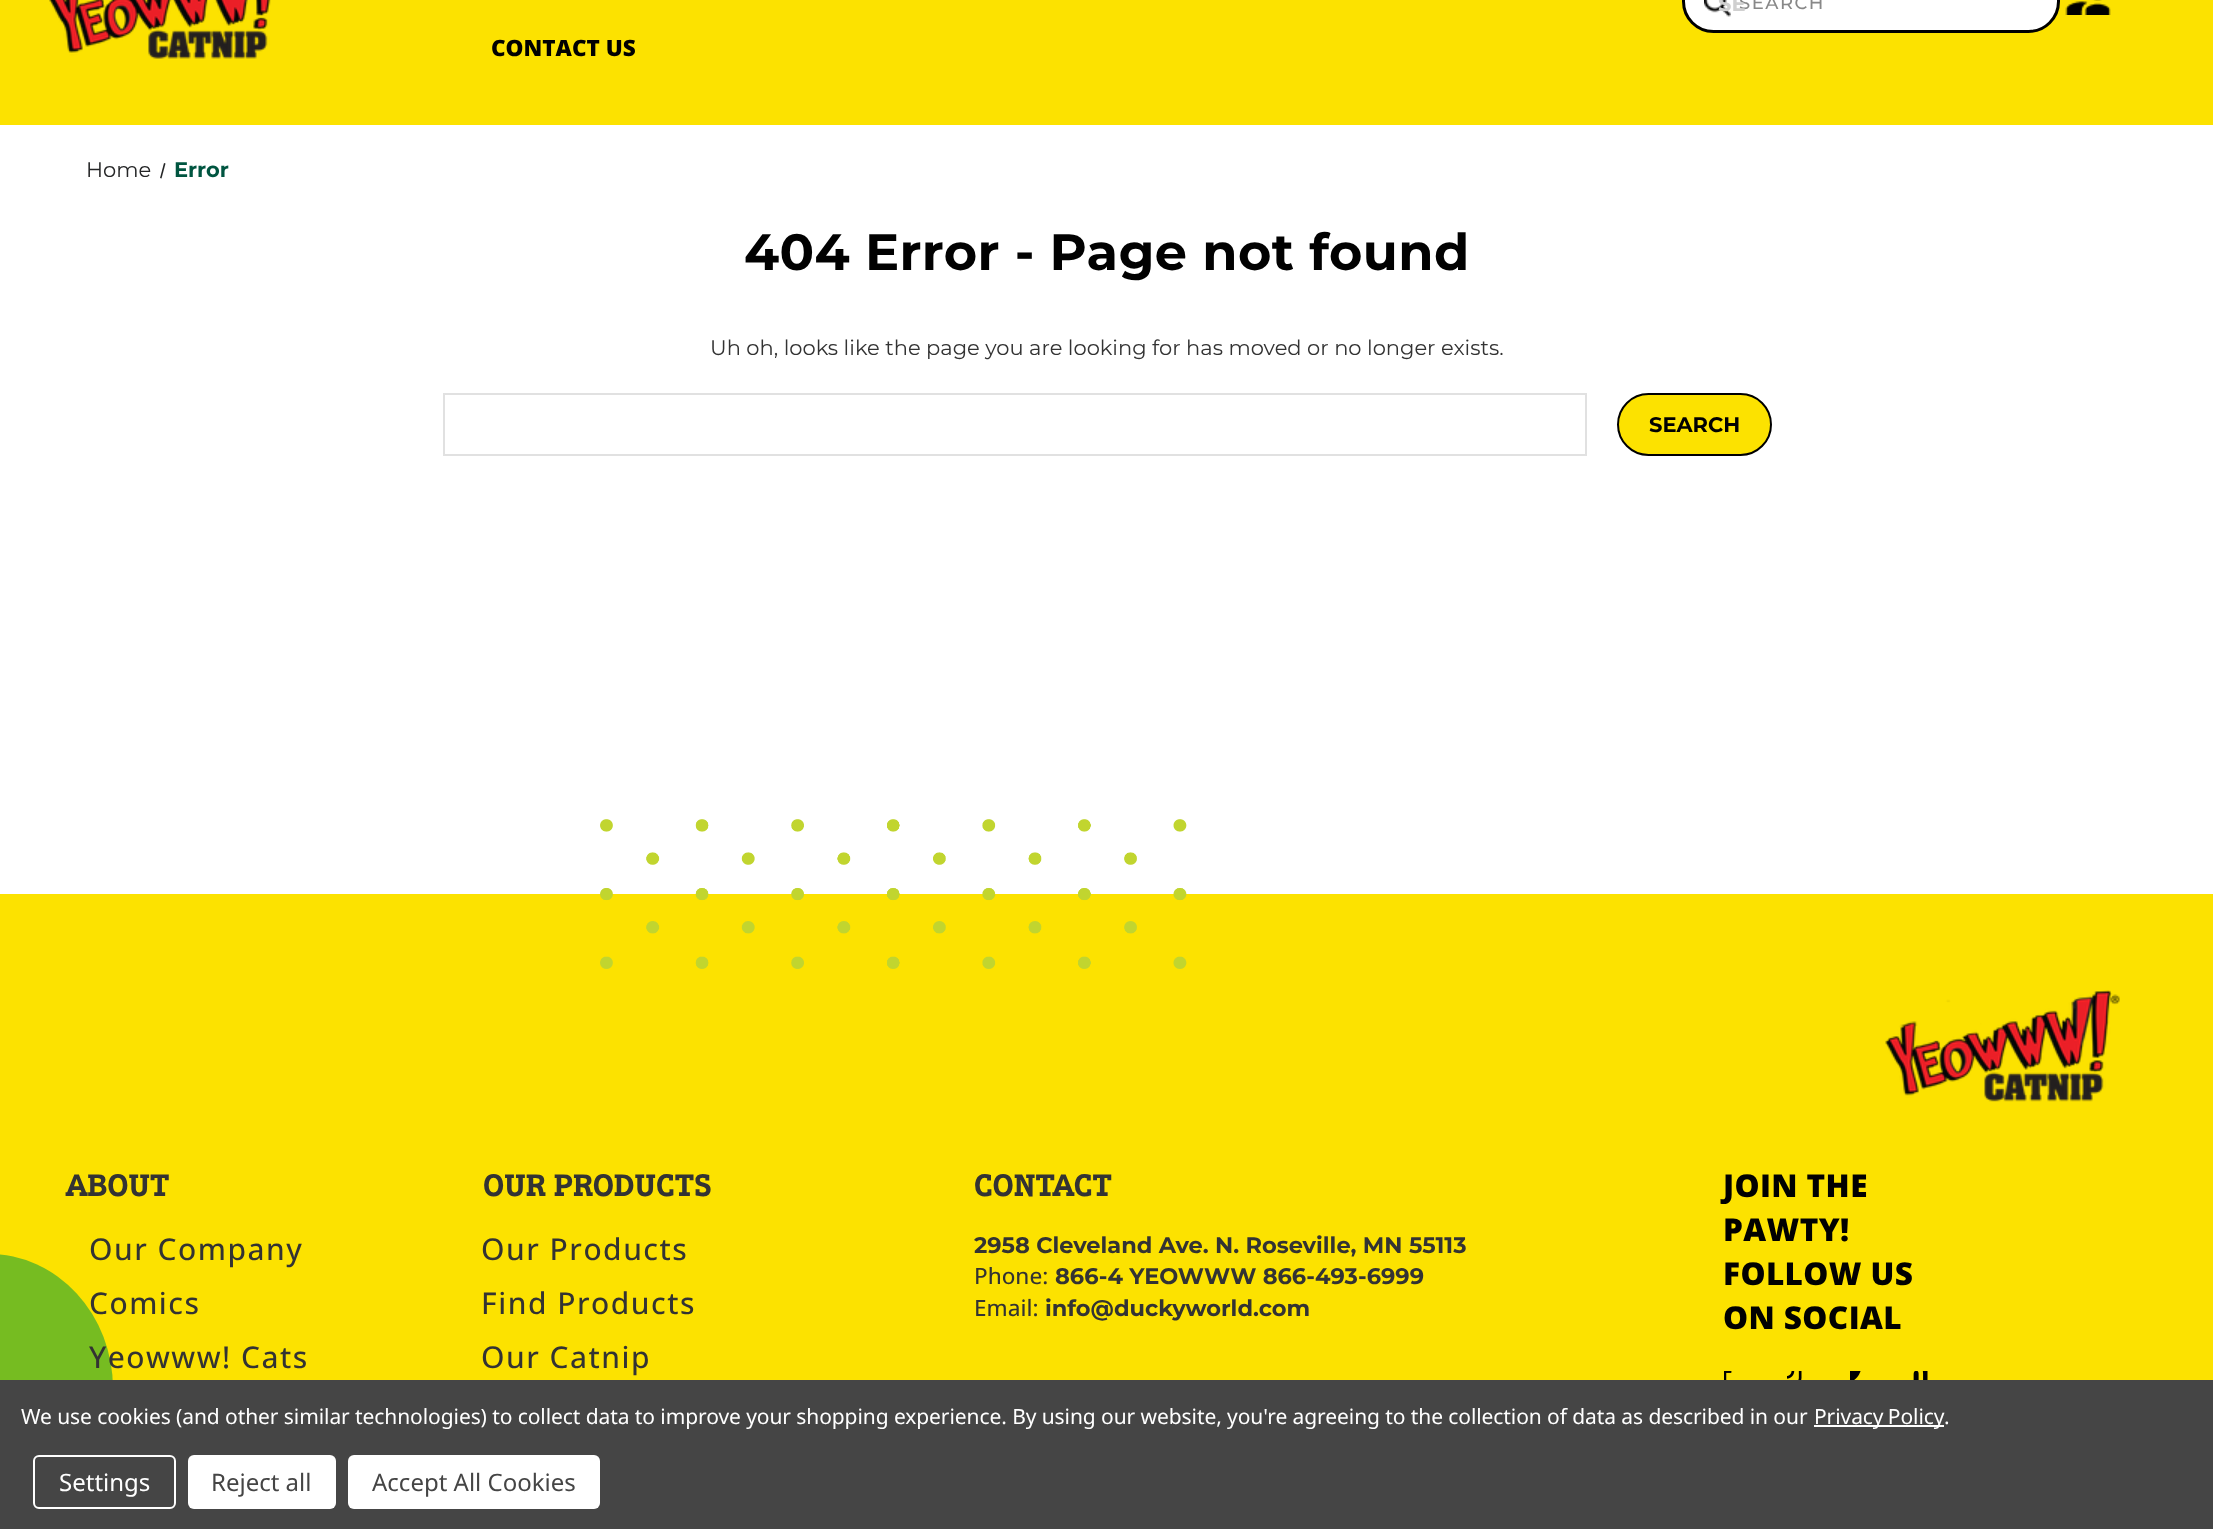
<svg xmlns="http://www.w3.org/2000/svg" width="2213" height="1529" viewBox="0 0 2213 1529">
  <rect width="100%" height="100%" fill="#fce200"/>
  <image x="49" y="0" width="222" height="59" href="img/1.png"/>
  <rect x="1683.5" y="-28.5" width="375" height="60" rx="30" fill="#fff" stroke="#000" stroke-width="3"/>
  <image x="1704" y="0" width="27" height="17" href="img/2.png"/>
  <image x="2065" y="0" width="46" height="15" href="img/3.png"/>
  <path d="M0 125h2213v769H0z" fill="#fff"/>
  <path d="M164 163L165.5 163.5L161.5 178.5L160 178Z" fill="#242526"/>
  <path d="M444 394h1142v61H444z" fill="none" stroke="#e1e1e1" stroke-width="2"/>
  <rect x="1618" y="394" width="153" height="61" rx="30.5" fill="#fce200" stroke="#000" stroke-width="2"/>
  <image x="1885" y="990" width="235" height="112" href="img/4.png"/>
  <image x="600" y="819" width="587" height="150" href="img/5.png"/>
  <rect x="-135" y="1254" width="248" height="269" rx="134.5" fill="#76bc21"/>
  <image x="1724" y="1371" width="8" height="9" href="img/6.png"/>
  <image x="1787" y="1371" width="15" height="9" href="img/7.png"/>
  <image x="1850" y="1371" width="11" height="9" href="img/8.png"/>
  <image x="1913" y="1371" width="15" height="9" href="img/9.png"/>
  <path d="M0 1380h2213v149H0z" fill="#454545"/>
  <path d="M1814 1425h130v2H1814z" fill="#fff"/>
  <rect x="34" y="1456" width="141" height="52" rx="5" fill="none" stroke="#fff" stroke-width="2"/>
  <rect x="188" y="1455" width="148" height="54" rx="6" fill="#fff"/>
  <rect x="348" y="1455" width="252" height="54" rx="6" fill="#fff"/>
  <text x="1739" y="9" font-family="Montserrat" font-size="18" font-weight="500" letter-spacing="1.5" fill="#888">SEARCH</text>
  <text x="1718" y="11" font-family="Montserrat" font-size="21" font-weight="bold" fill="#d0d0d0">SE</text>
  <text x="491" y="56" font-family="Open Sans" font-size="22.5" font-weight="800" fill="#010101">CONTACT US</text>
  <text x="86" y="177" font-family="Montserrat" font-size="21" fill="#242526">Home</text>
  <text x="174" y="177" font-family="Montserrat" font-size="21" font-weight="bold" fill="#005540">Error</text>
  <text x="744" y="270" font-family="Montserrat" font-size="51" font-weight="bold" letter-spacing="0.4" fill="#010101">404 Error - Page not found</text>
  <text x="710" y="355" font-family="Montserrat" font-size="21" fill="#333">Uh oh, looks like the page you are looking for has moved or no longer exists.</text>
  <text x="1649" y="432" font-family="Montserrat" font-size="21" font-weight="bold" fill="#010101">SEARCH</text>
  <text x="66" y="1196" font-family="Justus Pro" font-size="30" font-weight="bold" fill="#333">ABOUT</text>
  <g font-family="Open Sans" font-size="30" font-weight="500" letter-spacing="1.5" fill="#333">
    <text x="89" y="1260">Our Company</text>
    <text x="89" y="1314">Comics</text>
    <text x="89" y="1368">Yeowww! Cats</text>
  </g>
  <text x="483" y="1196" font-family="Justus Pro" font-size="30" font-weight="bold" fill="#333">OUR PRODUCTS</text>
  <g font-family="Open Sans" font-size="30" font-weight="500" letter-spacing="1.5" fill="#333">
    <text x="481" y="1260">Our Products</text>
    <text x="481" y="1314">Find Products</text>
    <text x="481" y="1368">Our Catnip</text>
  </g>
  <text x="974" y="1196" font-family="Justus Pro" font-size="30" font-weight="bold" fill="#333">CONTACT</text>
  <text x="974" y="1253" font-family="Montserrat" font-size="22.5" font-weight="bold" fill="#333">2958 Cleveland Ave. N. Roseville, MN 55113</text>
  <text x="974" y="1284" font-family="Open Sans" font-size="22.5" font-weight="500" fill="#333">Phone:</text>
  <text x="1055" y="1284" font-family="Montserrat" font-size="22.5" font-weight="bold" fill="#333">866-4 YEOWWW 866-493-6999</text>
  <text x="974" y="1316" font-family="Open Sans" font-size="22.5" font-weight="500" fill="#333">Email:</text>
  <text x="1045" y="1316" font-family="Montserrat" font-size="22.5" font-weight="bold" fill="#333">info@duckyworld.com</text>
  <g font-family="Open Sans" font-size="31.5" font-weight="800" letter-spacing="0.4" fill="#010101">
    <text x="1723" y="1197">JOIN THE</text>
    <text x="1723" y="1241">PAWTY!</text>
    <text x="1723" y="1285">FOLLOW US</text>
    <text x="1723" y="1329">ON SOCIAL</text>
  </g>
  <g font-family="Noto Sans" font-size="21" letter-spacing="-0.08" fill="#fff">
    <text x="21" y="1424">We use cookies (and other similar technologies) to collect data to improve your shopping experience. By using our website, you're agreeing to the collection of data as described in our</text>
    <text x="1814" y="1424" word-spacing="-1">Privacy Policy</text>
    <text x="1944" y="1424">.</text>
  </g>
  <text x="59" y="1491" font-family="Noto Sans" font-size="24" fill="#fff">Settings</text>
  <g font-family="Noto Sans" font-size="24" fill="#454545">
    <text x="211" y="1491">Reject all</text>
    <text x="372" y="1491">Accept All Cookies</text>
  </g>
</svg>
